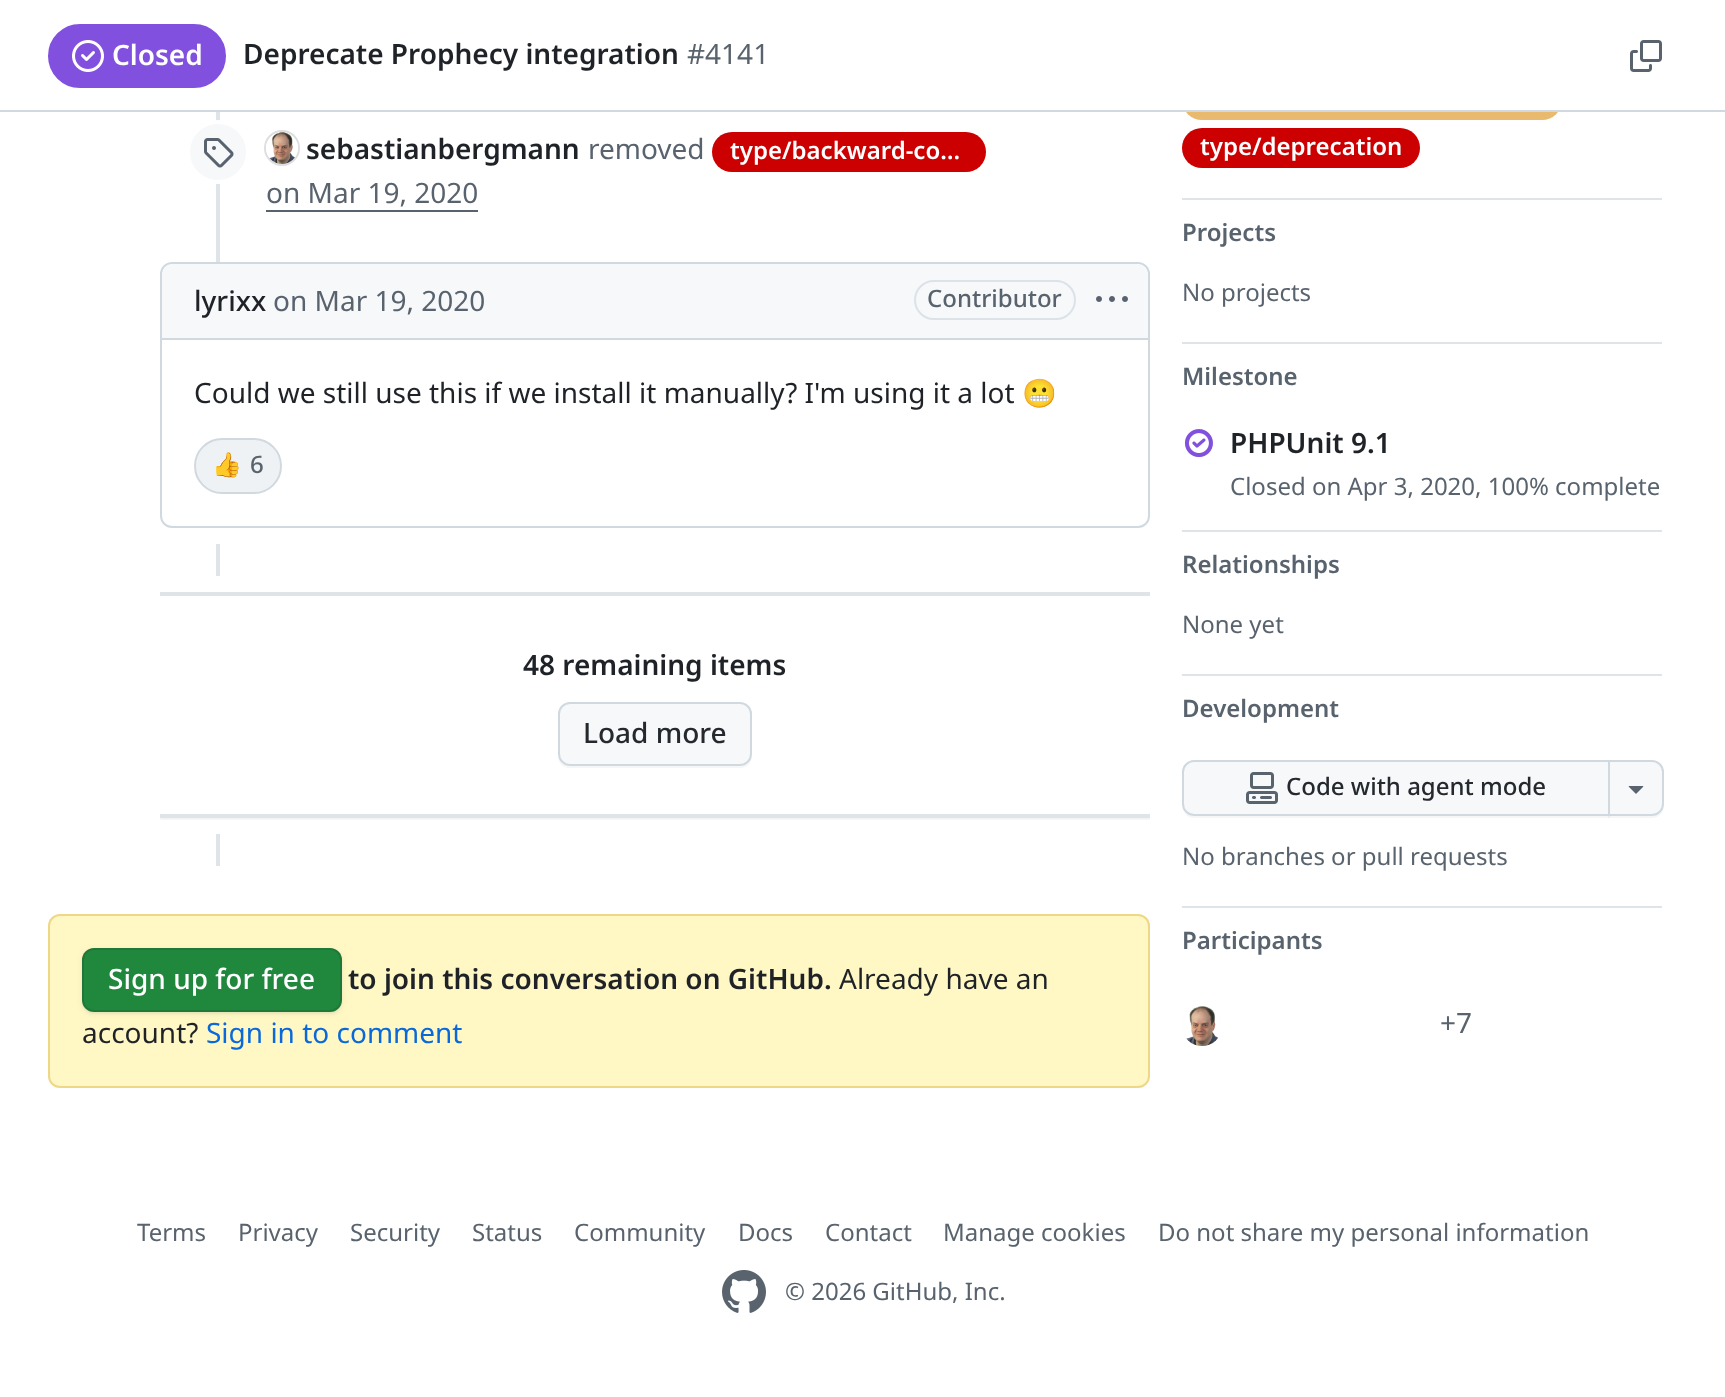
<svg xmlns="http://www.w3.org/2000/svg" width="1725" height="1397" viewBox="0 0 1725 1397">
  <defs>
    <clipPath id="clip1"><path d="M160 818h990v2H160z"/></clipPath>
  </defs>
  <rect width="100%" height="100%" fill="#fff"/>
  <path d="M216 104h4v158H216z" fill="#dfe4e9"/>
  <rect x="1182" y="80" width="380" height="40" rx="20" fill="#e9b96e"/>
  <path d="M216 80h1346v30H216z" fill="#fff"/>
  <path d="M0 110h1725v2H0z" fill="#d1d9e0"/>
  <rect x="49" y="25" width="176" height="62" rx="31" fill="#8250df" stroke="#8250df" stroke-width="2"/>
  <image x="72" y="40" width="32" height="32" href="img/1.png"/>
  <image x="1630" y="40" width="32" height="32" href="img/2.png"/>
  <circle cx="218" cy="152" r="30" fill="#f6f8fa" stroke="#fff" stroke-width="4"/>
  <image x="204" y="138" width="30" height="30" href="img/3.png"/>
  <circle cx="282" cy="148" r="17" fill="none" stroke="#dddedf" stroke-width="2"/>
  <image x="266" y="132" width="32" height="32" href="img/4.png"/>
  <rect x="712" y="132" width="274" height="40" rx="20" fill="#c00"/>
  <path d="M266 210h212v2H266z" fill="#59636e"/>
  <rect x="161" y="263" width="988" height="264" rx="11" fill="none" stroke="#d1d9e0" stroke-width="2"/>
  <path d="M174 264H1136C1142.5 264 1148 269.5 1148 276V340H162V276C162 269.5 167.5 264 174 264Z" fill="#f6f8fa"/>
  <path d="M162 338h986v2H162z" fill="#d1d9e0"/>
  <rect x="915" y="281" width="160" height="38" rx="19" fill="none" stroke="#dce2e8" stroke-width="2"/>
  <image x="1096" y="296" width="32" height="6" href="img/5.png"/>
  <rect x="195" y="439" width="86" height="54" rx="27" fill="#eff2f5" stroke="#d1d9e0" stroke-width="2"/>
  <path d="M216 544h4v32H216z" fill="#dfe4e9"/>
  <g clip-path="url(#clip1)">
    <path d="M160 594h990v226H160z" fill="#1f23280f" filter="blur(1px)"/>
  </g>
  <path d="M160 592h990v4H160z" fill="#dfe4e9"/>
  <path d="M160 814h990v4H160z" fill="#dfe4e9"/>
  <path d="M558 754V756C558 763 563 768 570 768H740C747 768 752 763 752 756V754C752 761 747 766 740 766H570C563 766 558 761 558 754Z" fill="#f6f6f6"/>
  <rect x="559" y="703" width="192" height="62" rx="11" fill="#f6f8fa" stroke="#d1d9e0" stroke-width="2"/>
  <path d="M216 834h4v32H216z" fill="#dfe4e9"/>
  <rect x="48" y="914" width="1102" height="174" rx="12" fill="#fff8c5"/>
  <rect x="49" y="915" width="1100" height="172" rx="11" fill="none" stroke="#d4a72c66" stroke-width="2"/>
  <rect x="82" y="950" width="260" height="64" rx="12" fill="#1f23280f" filter="blur(3px)"/>
  <rect x="82" y="950" width="260" height="64" rx="12" fill="#1f23280f" filter="blur(1px)"/>
  <rect x="82" y="948" width="260" height="64" rx="12" fill="#1f883d"/>
  <rect x="83" y="949" width="258" height="62" rx="11" fill="none" stroke="#1f232826" stroke-width="2"/>
  <rect x="1182" y="128" width="238" height="40" rx="20" fill="#c00"/>
  <path d="M1182 198h480v2H1182z" fill="#dfe4e9"/>
  <path d="M1182 342h480v2H1182z" fill="#dfe4e9"/>
  <image x="1184" y="429" width="29" height="29" href="img/6.png"/>
  <path d="M1182 530h480v2H1182z" fill="#dfe4e9"/>
  <path d="M1182 674h480v2H1182z" fill="#dfe4e9"/>
  <path d="M1182 804C1182 811 1186 818 1194 818H1610V816H1194C1187 816 1182 811 1182 804Z" fill="#f6f6f6"/>
  <path d="M1194 761H1609V815H1194C1188 815 1183 810 1183 804V772C1183 766 1188 761 1194 761Z" fill="#f6f8fa" stroke="#d1d9e0" stroke-width="2"/>
  <image x="1246" y="772" width="32" height="32" href="img/7.png"/>
  <path d="M1608 816V818H1637C1650 818 1664 821 1664 804C1664 811 1659 816 1652 816Z" fill="#1f23280a"/>
  <path d="M1609 761H1652C1658 761 1663 766 1663 772V804C1663 810 1658 815 1652 815H1609Z" fill="#f6f8fa" stroke="#d1d9e0" stroke-width="2"/>
  <image x="1628" y="786" width="16" height="8" href="img/8.png"/>
  <path d="M1182 906h480v2H1182z" fill="#dfe4e9"/>
  <circle cx="1202" cy="1026" r="18" fill="none" stroke="#f6f8fa" stroke-width="4"/>
  <image x="1182" y="1006" width="40" height="40" href="img/9.png"/>
  <image x="722" y="1270" width="44" height="43" href="img/10.png"/>
  <text x="112" y="65" font-family="Noto Sans" font-size="28" font-weight="600" fill="#fff">Closed</text>
  <text x="243" y="64" font-family="Noto Sans" font-size="28" font-weight="600" fill="#1f2328">Deprecate Prophecy integration</text>
  <text x="687" y="64" font-family="Noto Sans" font-size="28" fill="#59636e">#4141</text>
  <text x="306" y="159" font-family="Noto Sans" font-size="28" font-weight="600" fill="#1f2328">sebastianbergmann</text>
  <text x="588" y="159" font-family="Noto Sans" font-size="28" fill="#59636e">removed</text>
  <text x="730" y="159" font-family="Noto Sans" font-size="24" font-weight="600" fill="#fff">type/backward-co…</text>
  <text x="266" y="203" font-family="Noto Sans" font-size="28" fill="#59636e">on Mar 19, 2020</text>
  <text x="194" y="311" font-family="Noto Sans" font-size="28" font-weight="500" fill="#1f2328">lyrixx</text>
  <text x="273" y="311" font-family="Noto Sans" font-size="28" fill="#59636e">on Mar 19, 2020</text>
  <text x="927" y="307" font-family="Noto Sans" font-size="24" font-weight="500" fill="#59636e">Contributor</text>
  <text x="194" y="403" font-family="Noto Sans" font-size="28" fill="#1f2328">Could we still use this if we install it manually? I'm using it a lot</text>
  <text x="1022" y="403" font-family="Noto Color Emoji" font-size="28" fill="#1f2328">😬</text>
  <text x="212" y="473" font-family="Noto Color Emoji" font-size="24" fill="#59636e">👍</text>
  <text x="250" y="473" font-family="Noto Sans" font-size="24" font-weight="500" fill="#59636e">6</text>
  <text x="523" y="675" font-family="Noto Sans" font-size="28" font-weight="600" fill="#1f2328">48 remaining items</text>
  <text x="583" y="743" font-family="Noto Sans" font-size="28" font-weight="500" fill="#25292e">Load more</text>
  <text x="108" y="989" font-family="Noto Sans" font-size="28" font-weight="500" fill="#fff">Sign up for free</text>
  <text x="348" y="989" font-family="Noto Sans" font-size="28" font-weight="600" fill="#1f2328">to join this conversation on GitHub.</text>
  <g font-family="Noto Sans" font-size="28" fill="#1f2328">
    <text x="839" y="989">Already have an</text>
    <text x="82" y="1043">account?</text>
  </g>
  <text x="206" y="1043" font-family="Noto Sans" font-size="28" fill="#0969da">Sign in to comment</text>
  <text x="1200" y="155" font-family="Noto Sans" font-size="24" font-weight="600" fill="#fff">type/deprecation</text>
  <text x="1182" y="241" font-family="Noto Sans" font-size="24" font-weight="600" fill="#59636e">Projects</text>
  <text x="1182" y="301" font-family="Noto Sans" font-size="24" fill="#59636e">No projects</text>
  <text x="1182" y="385" font-family="Noto Sans" font-size="24" font-weight="600" fill="#59636e">Milestone</text>
  <text x="1230" y="453" font-family="Noto Sans" font-size="28" font-weight="600" fill="#1f2328">PHPUnit 9.1</text>
  <text x="1230" y="495" font-family="Noto Sans" font-size="24" fill="#59636e">Closed on Apr 3, 2020, 100% complete</text>
  <text x="1182" y="573" font-family="Noto Sans" font-size="24" font-weight="600" fill="#59636e">Relationships</text>
  <text x="1182" y="633" font-family="Noto Sans" font-size="24" fill="#59636e">None yet</text>
  <text x="1182" y="717" font-family="Noto Sans" font-size="24" font-weight="600" fill="#59636e">Development</text>
  <text x="1286" y="795" font-family="Noto Sans" font-size="24" font-weight="500" fill="#25292e">Code with agent mode</text>
  <text x="1182" y="865" font-family="Noto Sans" font-size="24" fill="#59636e">No branches or pull requests</text>
  <text x="1182" y="949" font-family="Noto Sans" font-size="24" font-weight="600" fill="#59636e">Participants</text>
  <text x="1440" y="1033" font-family="Noto Sans" font-size="28" fill="#59636e">+7</text>
  <g font-family="Noto Sans" font-size="24" fill="#59636e">
    <text x="137" y="1241">Terms</text>
    <text x="238" y="1241">Privacy</text>
    <text x="350" y="1241">Security</text>
    <text x="472" y="1241">Status</text>
    <text x="574" y="1241">Community</text>
    <text x="738" y="1241">Docs</text>
    <text x="825" y="1241">Contact</text>
    <text x="943" y="1241">Manage cookies</text>
    <text x="1158" y="1241">Do not share my personal information</text>
    <text x="785" y="1300">© 2026 GitHub, Inc.</text>
  </g>
</svg>
